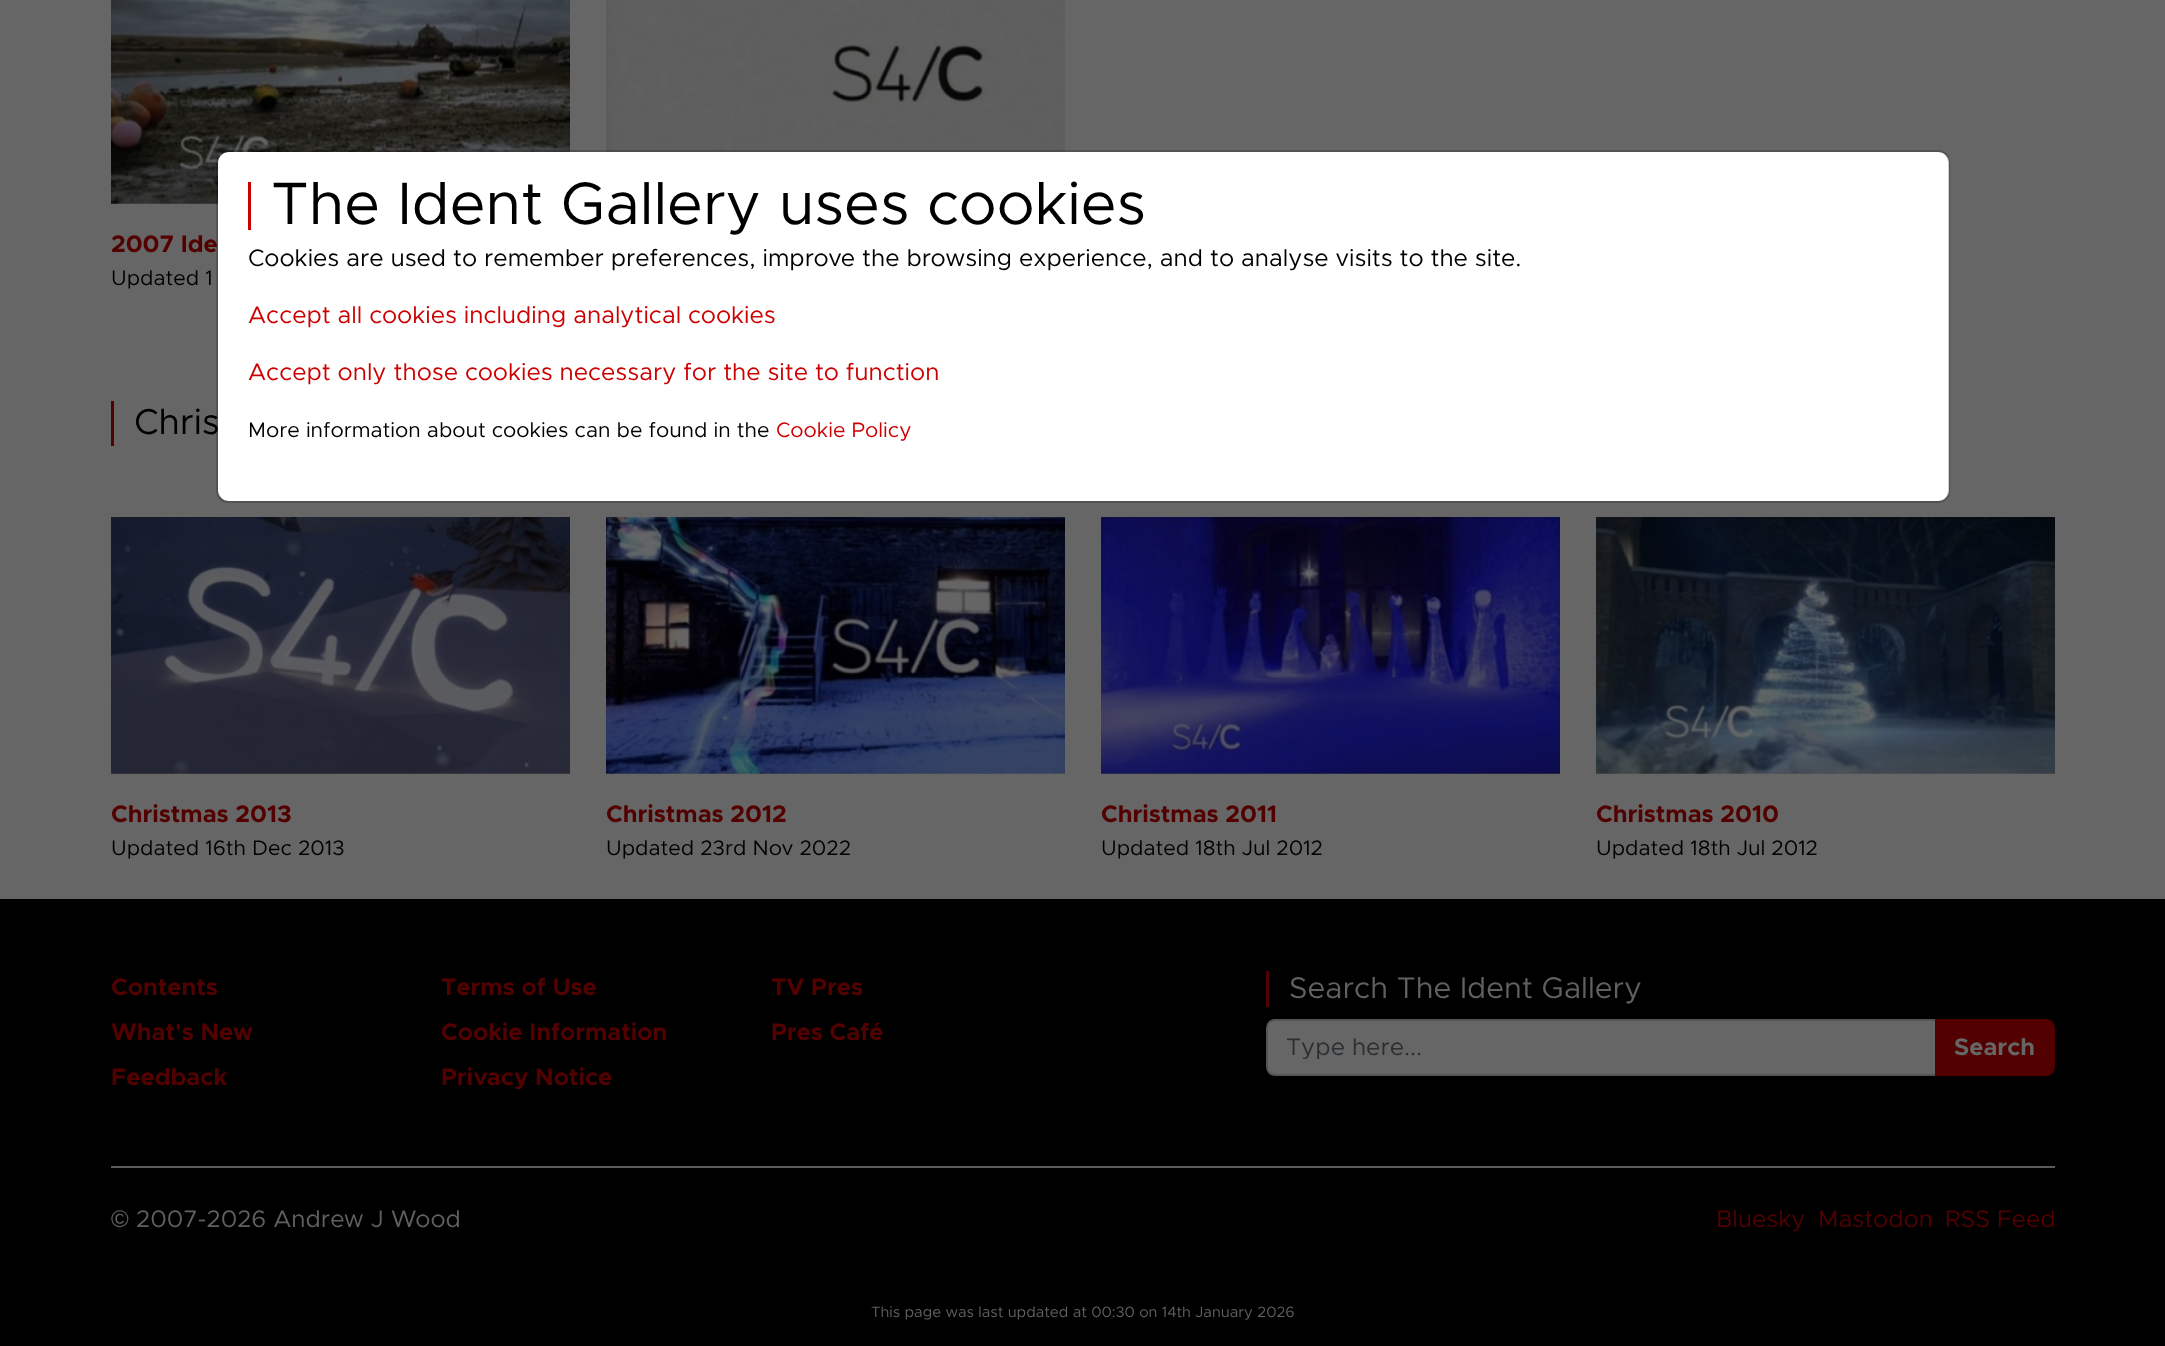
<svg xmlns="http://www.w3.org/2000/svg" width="2165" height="1346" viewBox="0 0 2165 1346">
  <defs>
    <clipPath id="clip1"><path d="M1286 1035h631v24H1286z"/></clipPath>
  </defs>
  <rect width="100%" height="100%" fill="#666"/>
  <image x="111" y="0" width="459" height="204" href="img/2.png"/>
  <rect x="218" y="152" width="1731" height="349" rx="11" fill="#fff"/>
  <image x="606" y="0" width="459" height="152" href="img/1.png"/>
  <path d="M111 401h3v45H111z" fill="#520000"/>
  <image x="111" y="517" width="459" height="257" href="img/3.png"/>
  <image x="606" y="517" width="459" height="257" href="img/4.png"/>
  <image x="1101" y="517" width="459" height="257" href="img/5.png"/>
  <image x="1596" y="517" width="459" height="257" href="img/6.png"/>
  <path d="M0 899h2165v447H0z" fill="#000"/>
  <path d="M1266 971h3v36H1266z" fill="#520000"/>
  <path d="M1275 1020H1936V1075H1275C1270.5 1075 1267 1071.5 1267 1067V1028C1267 1023.5 1270.5 1020 1275 1020Z" fill="#666" stroke="#525557" stroke-width="2"/>
  <path d="M1936 1020H2046C2050.5 1020 2054 1023.5 2054 1028V1067C2054 1071.5 2050.5 1075 2046 1075H1936Z" fill="#520000" stroke="#520000" stroke-width="2"/>
  <path d="M111 1166h1944v2H111z" fill="#595a5c"/>
  <text x="111" y="252" font-family="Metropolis" font-size="24" font-weight="bold" fill="#520000">2007 Ide</text>
  <text x="111" y="285" font-family="Metropolis" font-size="21" fill="#000">Updated 1</text>
  <text x="134" y="434" font-family="Metropolis" font-size="36" fill="#000">Chris</text>
  <rect x="217" y="151" width="1732" height="351" rx="11" fill="none" stroke="#0000002e" stroke-width="2"/>
  <text x="776" y="437" font-family="Metropolis" font-size="21" fill="#c00">Cookie Policy</text>
  <text x="248" y="437" font-family="Metropolis" font-size="21" fill="#000">More information about cookies can be found in the</text>
  <g font-family="Metropolis" font-size="24" fill="#c00">
    <text x="248" y="380">Accept only those cookies necessary for the site to function</text>
    <text x="248" y="323">Accept all cookies including analytical cookies</text>
  </g>
  <text x="248" y="266" font-family="Metropolis" font-size="24" fill="#000">Cookies are used to remember preferences, improve the browsing experience, and to analyse visits to the site.</text>
  <text x="271" y="224" font-family="Metropolis" font-size="60" fill="#000">The Ident Gallery uses cookies</text>
  <path d="M248 182h3v48H248z" fill="#c00"/>
  <text x="111" y="822" font-family="Metropolis" font-size="24" font-weight="bold" fill="#520000">Christmas 2013</text>
  <text x="111" y="855" font-family="Metropolis" font-size="21" fill="#000">Updated 16th Dec 2013</text>
  <text x="606" y="822" font-family="Metropolis" font-size="24" font-weight="bold" fill="#520000">Christmas 2012</text>
  <text x="606" y="855" font-family="Metropolis" font-size="21" fill="#000">Updated 23rd Nov 2022</text>
  <text x="1101" y="822" font-family="Metropolis" font-size="24" font-weight="bold" fill="#520000">Christmas 2011</text>
  <text x="1101" y="855" font-family="Metropolis" font-size="21" fill="#000">Updated 18th Jul 2012</text>
  <text x="1596" y="822" font-family="Metropolis" font-size="24" font-weight="bold" fill="#520000">Christmas 2010</text>
  <text x="1596" y="855" font-family="Metropolis" font-size="21" fill="#000">Updated 18th Jul 2012</text>
  <g font-family="Metropolis" font-size="24" font-weight="bold" fill="#520000">
    <text x="111" y="995">Contents</text>
    <text x="111" y="1040">What's New</text>
    <text x="111" y="1085">Feedback</text>
    <text x="441" y="995">Terms of Use</text>
    <text x="441" y="1040">Cookie Information</text>
    <text x="441" y="1085">Privacy Notice</text>
    <text x="771" y="995">TV Pres</text>
    <text x="771" y="1040">Pres Café</text>
  </g>
  <text x="1289" y="998" font-family="Metropolis" font-size="30" fill="#606060">Search The Ident Gallery</text>
  <g clip-path="url(#clip1)">
    <text x="1286" y="1055" font-family="Metropolis" font-size="24" fill="#2b2f32">Type here...</text>
  </g>
  <text x="1954" y="1055" font-family="Metropolis" font-size="24" font-weight="bold" fill="#666">Search</text>
  <text x="111" y="1227" font-family="Liberation Sans" font-size="24" fill="#606060">©</text>
  <text x="136" y="1227" font-family="Metropolis" font-size="24" fill="#606060">2007-2026 Andrew J Wood</text>
  <g font-family="Metropolis" font-size="24" fill="#520000">
    <text x="1716" y="1227">Bluesky</text>
    <text x="1818" y="1227">Mastodon</text>
    <text x="1945" y="1227">RSS Feed</text>
  </g>
  <text x="871" y="1317" font-family="Metropolis" font-size="15" fill="#606060">This page was last updated at 00:30 on 14th January 2026</text>
</svg>
